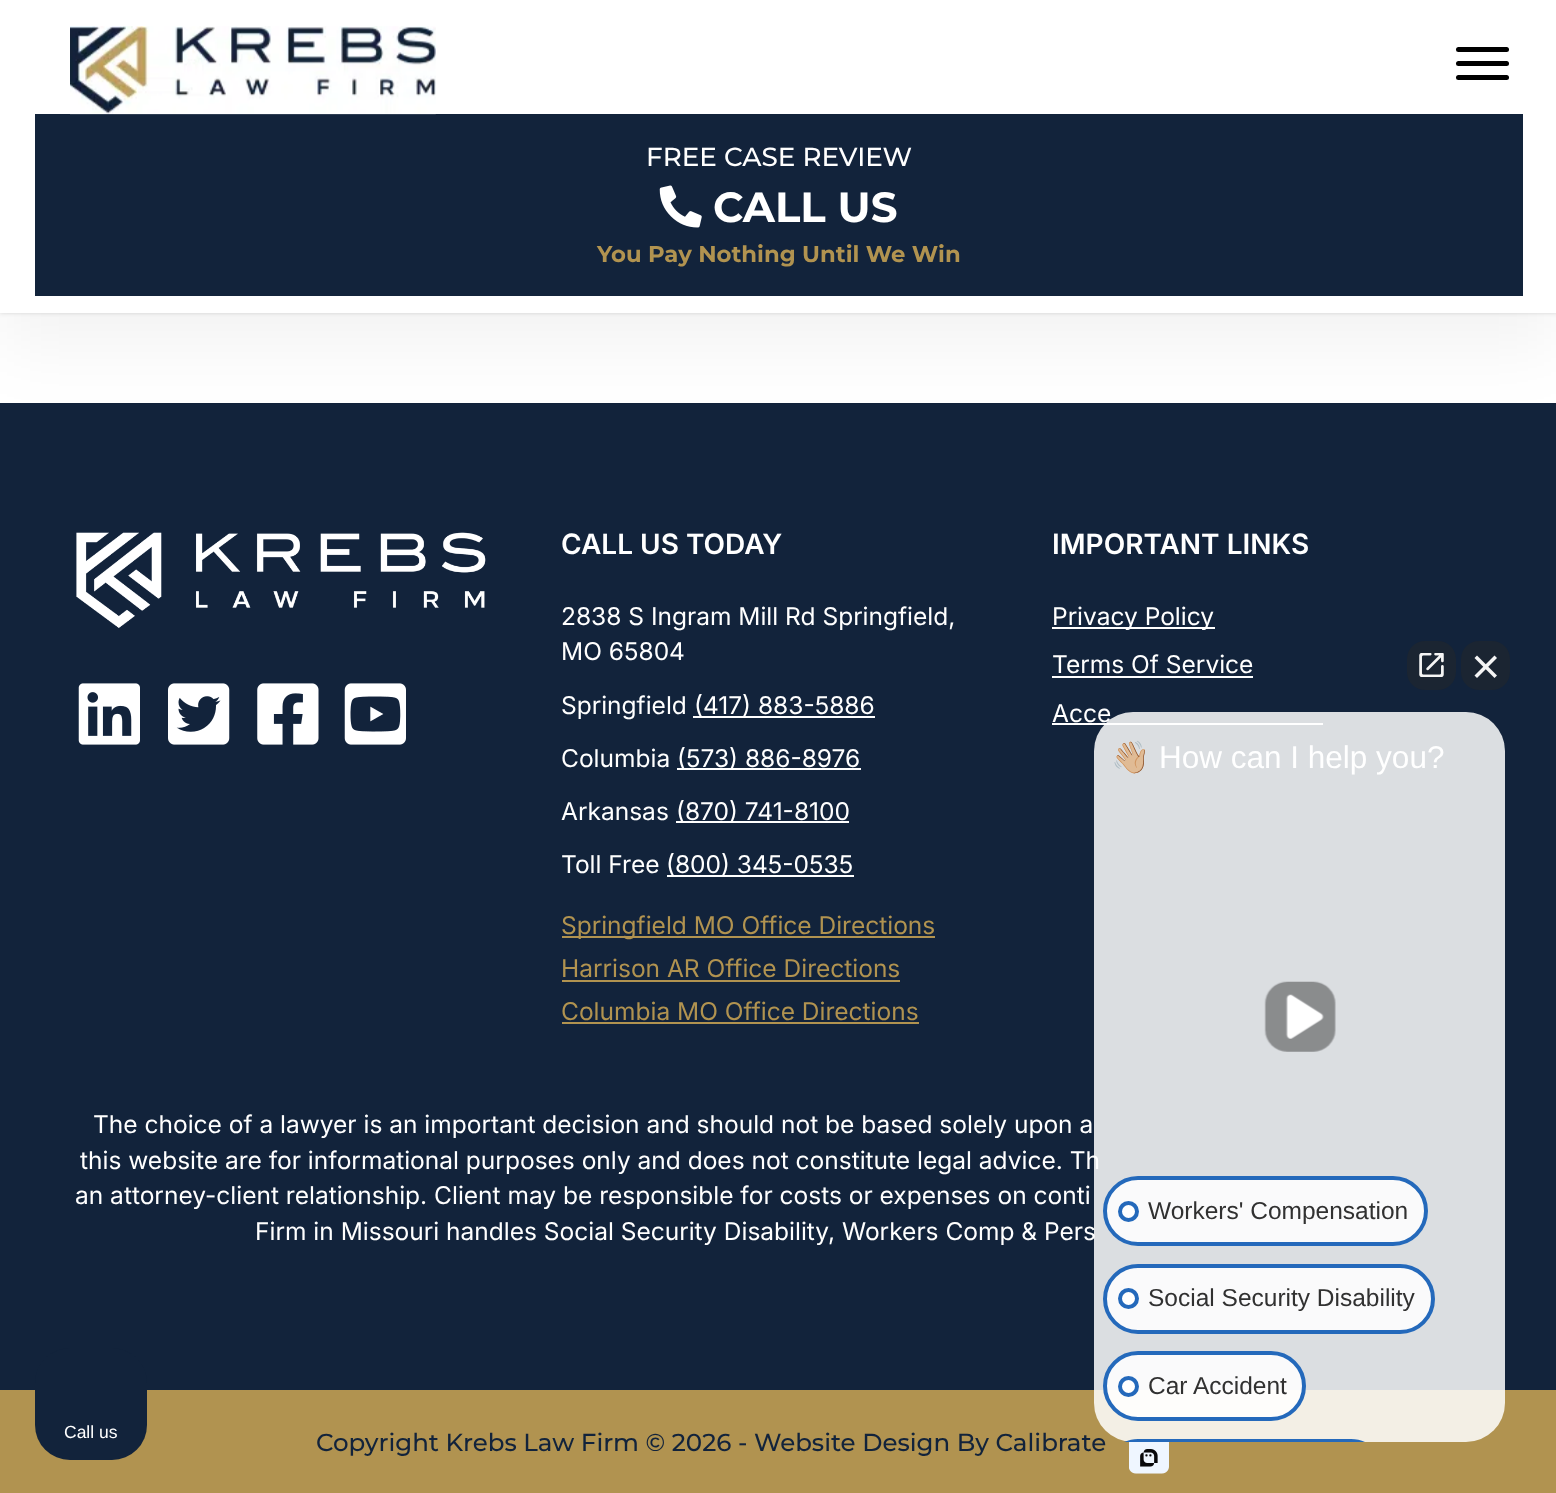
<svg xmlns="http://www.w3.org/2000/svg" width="1556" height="1493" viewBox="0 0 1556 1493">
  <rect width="100%" height="100%" fill="#fff"/>
  <path d="M0 403h1556v987H0z" fill="#12233b"/>
  <path d="M0 32h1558v313H0z" fill="#0000000d" filter="blur(35px)"/>
  <path d="M0 0h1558v313H0z" fill="#00000024" filter="blur(2px)"/>
  <path d="M0 0h1556v313H0z" fill="#fff"/>
  <path d="M35 114h1488v182H35z" fill="#12233b"/>
  <image x="70" y="26" width="366" height="89" href="img/1.png"/>
  <rect x="1456" y="61" width="53" height="5" rx="2.5" fill="#000"/>
  <rect x="1456" y="47" width="53" height="5" rx="2.5" fill="#000"/>
  <rect x="1456" y="75" width="53" height="5" rx="2.5" fill="#000"/>
  <image x="659" y="185" width="43" height="43" href="img/2.png"/>
  <image x="76" y="532" width="410" height="96" href="img/3.png"/>
  <image x="78" y="683" width="62" height="62" href="img/4.png"/>
  <image x="168" y="683" width="62" height="62" href="img/5.png"/>
  <image x="257" y="683" width="62" height="62" href="img/6.png"/>
  <image x="344" y="683" width="62" height="62" href="img/7.png"/>
  <path d="M693 716h182v2H693z" fill="#fff"/>
  <path d="M677 768h184v2H677z" fill="#fff"/>
  <path d="M676 821h173v2H676z" fill="#fff"/>
  <path d="M667 875h187v2H667z" fill="#fff"/>
  <path d="M562 936h373v2H562z" fill="#b19350"/>
  <path d="M562 980h338v2H562z" fill="#b19350"/>
  <path d="M562 1022h357v2H562z" fill="#b19350"/>
  <path d="M1052 627h163v2H1052z" fill="#fff"/>
  <path d="M1052 676h201v2H1052z" fill="#fff"/>
  <path d="M1052 723h271v2H1052z" fill="#fff"/>
  <path d="M0 1390h1556v103H0z" fill="#b19350"/>
  <rect x="1407" y="641" width="49" height="49" rx="18" fill="#1b2532"/>
  <image x="1419" y="653" width="25" height="24" href="img/8.png"/>
  <rect x="1461" y="641" width="49" height="49" rx="18" fill="#1b2532"/>
  <path d="M1474.5 658L1477 655.5L1497 675.5L1494.5 678Z" fill="#f5f5f5"/>
  <path d="M1494.5 655.5L1497 658L1477 678L1474.5 675.5Z" fill="#f5f5f5"/>
  <image x="1129" y="1442" width="40" height="32" href="img/10.png"/>
  <rect x="35" y="1348" width="112" height="112" rx="35" fill="#12233b"/>
  <text x="646" y="166" font-family="Montserrat" font-size="26.25" font-weight="500" fill="#fff">FREE CASE REVIEW</text>
  <text x="713" y="222" font-family="Montserrat" font-size="42" font-weight="bold" fill="#fff">CALL US</text>
  <text x="597" y="262" font-family="Montserrat" font-size="22.75" font-weight="bold" fill="#b19350">You Pay Nothing Until We Win</text>
  <text x="561" y="554" font-family="Inter" font-size="28" font-weight="600" fill="#fff">CALL US TODAY</text>
  <g font-family="Inter" font-size="24.5" fill="#fff">
    <text x="561" y="625">2838 S Ingram Mill Rd Springfield,</text>
    <text x="561" y="660">MO 65804</text>
    <text x="561" y="714">Springfield</text>
    <text x="694" y="714">(417) 883-5886</text>
    <text x="561" y="767">Columbia</text>
    <text x="677" y="767">(573) 886-8976</text>
    <text x="561" y="820">Arkansas</text>
    <text x="676" y="820">(870) 741-8100</text>
    <text x="561" y="873">Toll Free</text>
    <text x="666" y="873">(800) 345-0535</text>
  </g>
  <g font-family="Inter" font-size="24.5" fill="#b19350">
    <text x="561" y="934">Springfield MO Office Directions</text>
    <text x="561" y="977">Harrison AR Office Directions</text>
    <text x="561" y="1020">Columbia MO Office Directions</text>
  </g>
  <text x="1052" y="554" font-family="Inter" font-size="28" font-weight="600" fill="#fff">IMPORTANT LINKS</text>
  <g font-family="Inter" font-size="24.5" fill="#fff">
    <text x="1052" y="625">Privacy Policy</text>
    <text x="1052" y="673">Terms Of Service</text>
    <text x="1052" y="722">Acce</text>
    <text x="93" y="1133">The choice of a lawyer is an important decision and should not be based solely upon a</text>
    <text x="80" y="1169">this website are for informational purposes only and does not constitute legal advice. Th</text>
    <text x="75" y="1204">an attorney-client relationship. Client may be responsible for costs or expenses on conti</text>
    <text x="255" y="1240">Firm in Missouri handles Social Security Disability, Workers Comp &amp; Pers</text>
  </g>
  <text x="316" y="1451" font-family="Montserrat" font-size="24.5" font-weight="500" fill="#12233b">Copyright Krebs Law Firm © 2026 - Website Design By Calibrate</text>
  <rect x="1094" y="712" width="411" height="730" rx="39" fill="#ffffffd9"/>
  <text x="1111" y="768" font-family="Noto Color Emoji" font-size="31.5" fill="#fff">👋🏼</text>
  <text x="1159" y="768" font-family="Liberation Sans" font-size="31.5" fill="#fff">How can I help you?</text>
  <image x="1264" y="981" width="72" height="71" href="img/9.png"/>
  <rect x="1105" y="1178" width="321" height="66" rx="33" fill="#ffffffd9" stroke="#2469bb" stroke-width="4"/>
  <circle cx="1128.5" cy="1211.5" r="8.5" fill="#fff" stroke="#2469bb" stroke-width="4"/>
  <text x="1148" y="1219" font-family="Liberation Sans" font-size="24.5" fill="#313131">Workers' Compensation</text>
  <rect x="1105" y="1266" width="328" height="66" rx="33" fill="#fafafb" stroke="#2469bb" stroke-width="4"/>
  <circle cx="1128.5" cy="1298.5" r="8.5" fill="#fff" stroke="#2469bb" stroke-width="4"/>
  <text x="1148" y="1306" font-family="Liberation Sans" font-size="24.5" fill="#313131">Social Security Disability</text>
  <rect x="1105" y="1353" width="199" height="66" rx="33" fill="#ffffffd9" stroke="#2469bb" stroke-width="4"/>
  <circle cx="1128.5" cy="1386.5" r="8.5" fill="#fff" stroke="#2469bb" stroke-width="4"/>
  <text x="1148" y="1394" font-family="Liberation Sans" font-size="24.5" fill="#313131">Car Accident</text>
  <path d="M1138 1439H1351C1356 1439 1361 1440 1365 1442H1124C1129 1440 1133 1439 1138 1439Z" fill="#2469bb"/>
  <text x="64" y="1438" font-family="Liberation Sans" font-size="17.5" fill="#fff">Call us</text>
</svg>
